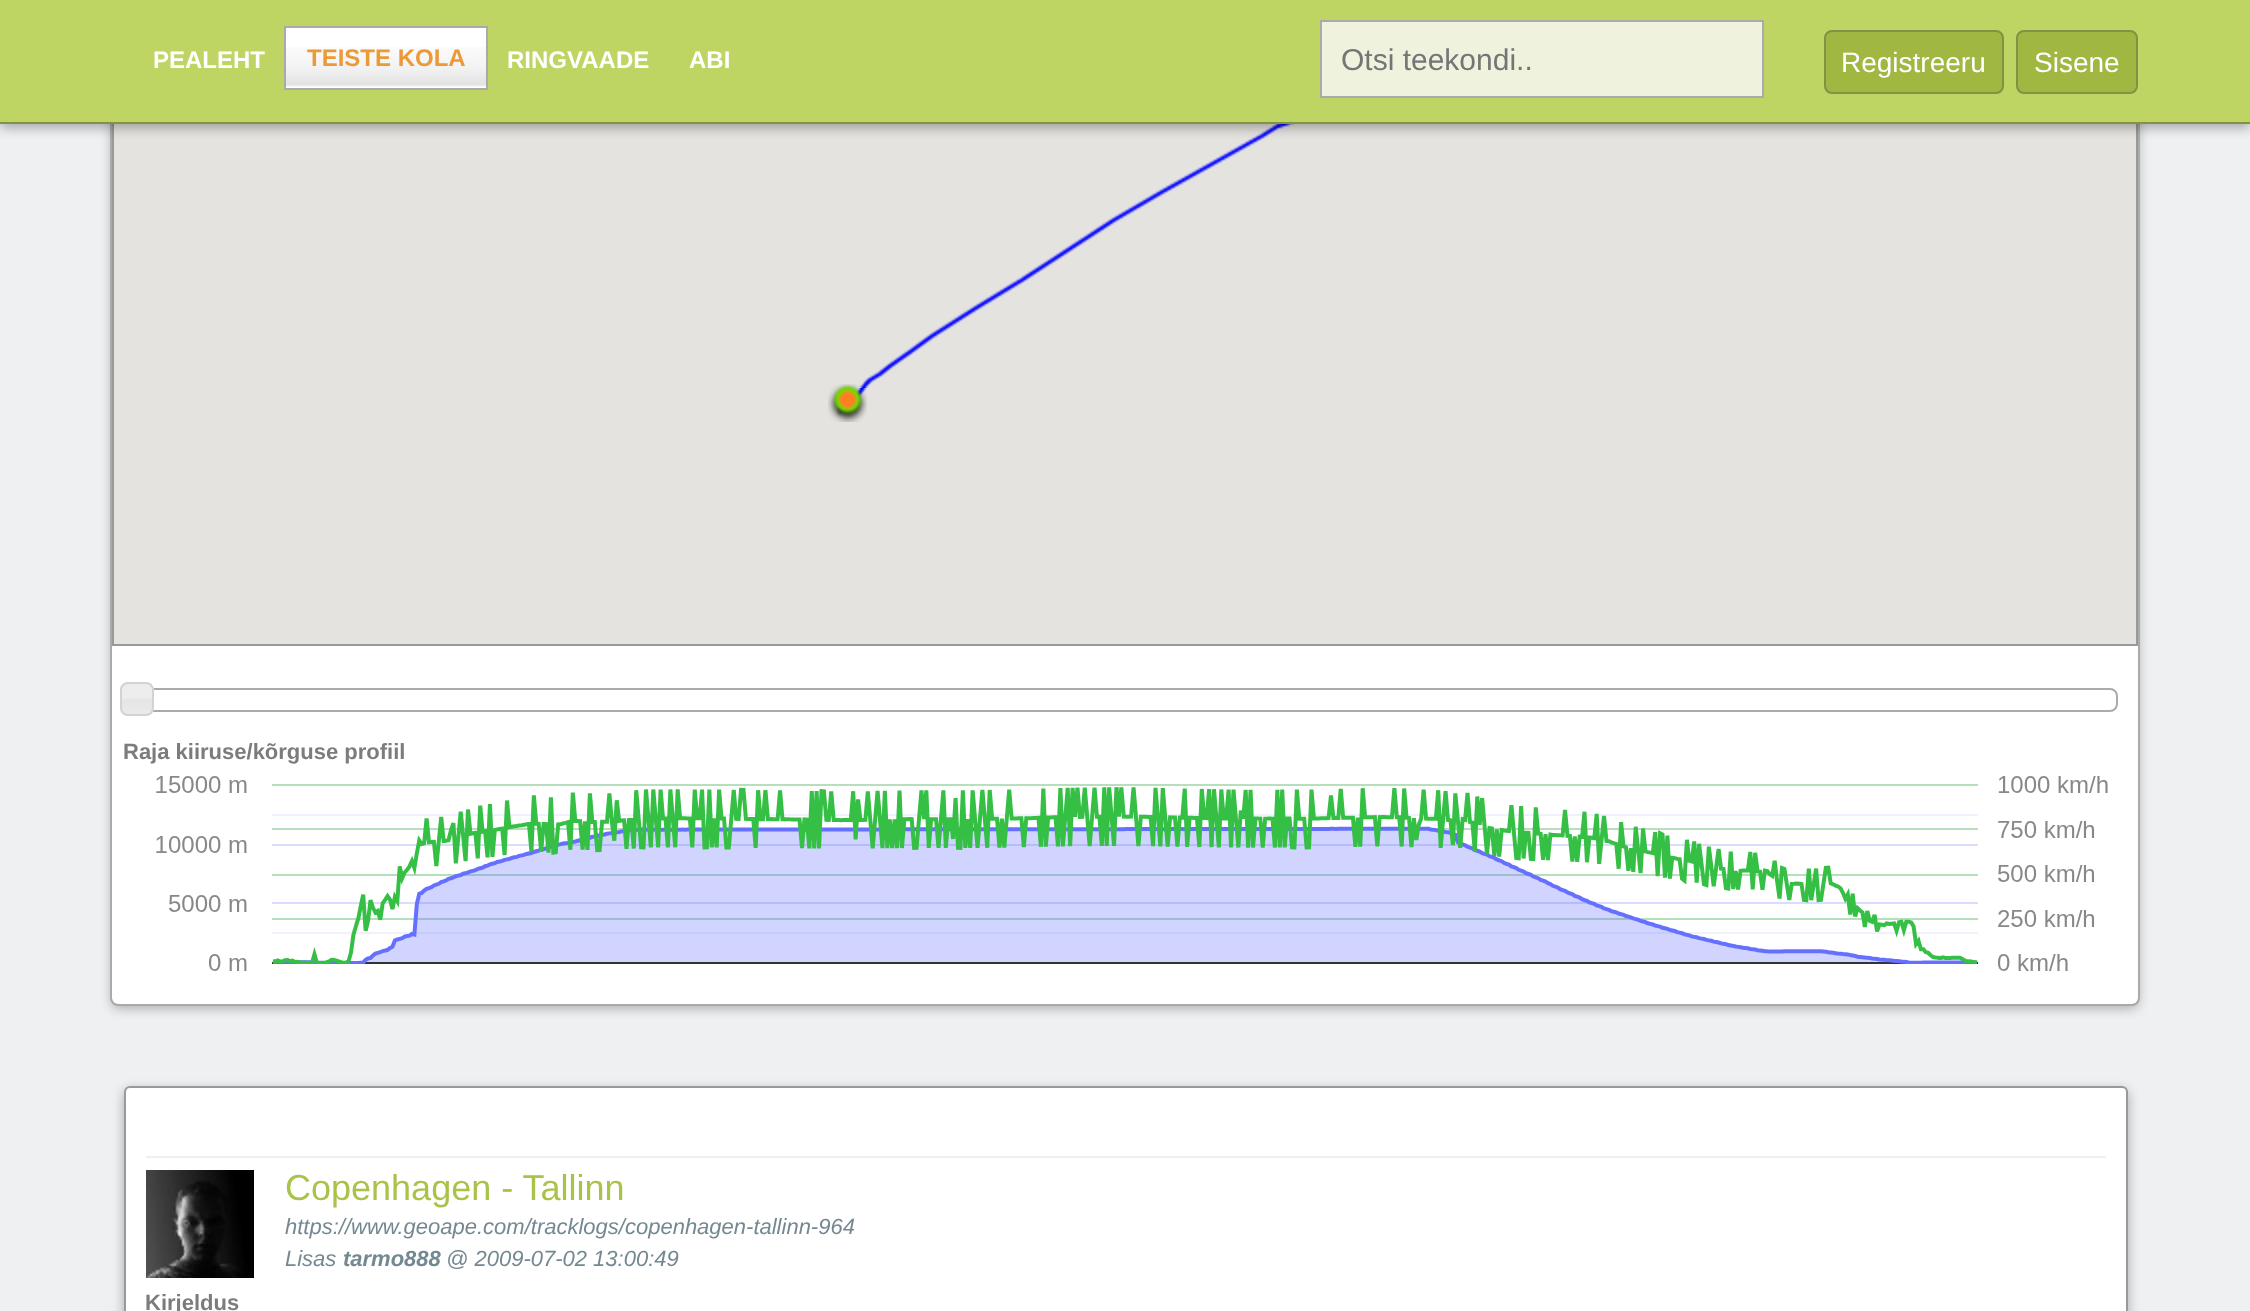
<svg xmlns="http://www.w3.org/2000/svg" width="2250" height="1311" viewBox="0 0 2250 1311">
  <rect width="100%" height="100%" fill="#eff0f2"/>
  <rect x="112" y="-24" width="2026" height="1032" rx="6" fill="#0000004d" filter="blur(6px)"/>
  <rect x="112" y="-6" width="2026" height="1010" rx="6" fill="#fff"/>
  <rect x="111" y="-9" width="2028" height="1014" rx="7" fill="none" stroke="#aaa" stroke-width="2"/>
  <path d="M113 -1h2024v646H113z" fill="none" stroke="#999" stroke-width="2"/>
  <path d="M114 124h2022v520H114z" fill="#e5e3df"/>
  <image x="859" y="124" width="436" height="264" href="img/2.png"/>
  <path d="M0 4h2250v124H0z" fill="#0000004d" filter="blur(6px)"/>
  <path d="M0 0h2250v122H0z" fill="#bed563"/>
  <path d="M0 122h2250v2H0z" fill="#819243"/>
  <path d="M286 28h200v60H286z" fill="#fff"/>
  <image x="286" y="47" width="200" height="40" href="img/1.png"/>
  <path d="M285 27h202v62H285z" fill="none" stroke="#aaa" stroke-width="2"/>
  <path d="M1321 21h442v76H1321z" fill="#eff3de" stroke="#aaa" stroke-width="2"/>
  <rect x="1825" y="31" width="178" height="62" rx="7" fill="#a0b842" stroke="#809243" stroke-width="2"/>
  <rect x="2017" y="31" width="120" height="62" rx="7" fill="#a0b842" stroke="#809243" stroke-width="2"/>
  <image x="841" y="388" width="26" height="23" href="img/3.png"/>
  <image x="836" y="389" width="25" height="27" href="img/6.png"/>
  <image x="828" y="384" width="39" height="38" href="img/4.png"/>
  <image x="828" y="384" width="39" height="38" href="img/5.png"/>
  <rect x="133" y="689" width="1984" height="22" rx="7" fill="none" stroke="#aaa" stroke-width="2"/>
  <image x="120" y="682" width="34" height="34" href="img/7.png"/>
  <rect x="121" y="683" width="32" height="32" rx="7" fill="none" stroke="#d3d3d3" stroke-width="2"/>
  <image x="156" y="776" width="1952" height="195" href="img/8.png"/>
  <rect x="124" y="1090" width="2004" height="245" rx="6" fill="#0000004d" filter="blur(6px)"/>
  <rect x="125" y="1087" width="2002" height="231" rx="5" fill="#fff" stroke="#999" stroke-width="2"/>
  <path d="M146 1156h1960v2H146z" fill="#f0f0f0"/>
  <image x="146" y="1170" width="108" height="108" href="img/9.png"/>
  <text x="153" y="68" font-family="Liberation Sans" font-size="24" font-weight="bold" fill="#fff">PEALEHT</text>
  <text x="307" y="66" font-family="Liberation Sans" font-size="24" font-weight="bold" fill="#ed9937">TEISTE KOLA</text>
  <g font-family="Liberation Sans" font-size="24" font-weight="bold" fill="#fff">
    <text x="507" y="68">RINGVAADE</text>
    <text x="689" y="68">ABI</text>
  </g>
  <text x="1341" y="70" font-family="Liberation Sans" font-size="30" fill="#757575">Otsi teekondi..</text>
  <g font-family="Liberation Sans" font-size="28" fill="#fff">
    <text x="1841" y="72">Registreeru</text>
    <text x="2034" y="72">Sisene</text>
  </g>
  <text x="123" y="759" font-family="Liberation Sans" font-size="22" font-weight="bold" fill="#7d7c7c">Raja kiiruse/kõrguse profiil</text>
  <text x="285" y="1200" font-family="Liberation Sans" font-size="36" fill="#a9c348">Copenhagen - Tallinn</text>
  <g font-family="Liberation Sans" font-size="22" font-style="italic" fill="#748891">
    <text x="285" y="1234">https://www.geoape.com/tracklogs/copenhagen-tallinn-964</text>
    <text x="285" y="1266">Lisas</text>
  </g>
  <text x="343" y="1266" font-family="Liberation Sans" font-size="22" font-weight="bold" font-style="italic" fill="#748891">tarmo888</text>
  <text x="446" y="1266" font-family="Liberation Sans" font-size="22" font-style="italic" fill="#748891">@ 2009-07-02 13:00:49</text>
  <text x="145" y="1310" font-family="Liberation Sans" font-size="22" font-weight="bold" fill="#7d7c7c">Kirjeldus</text>
</svg>
